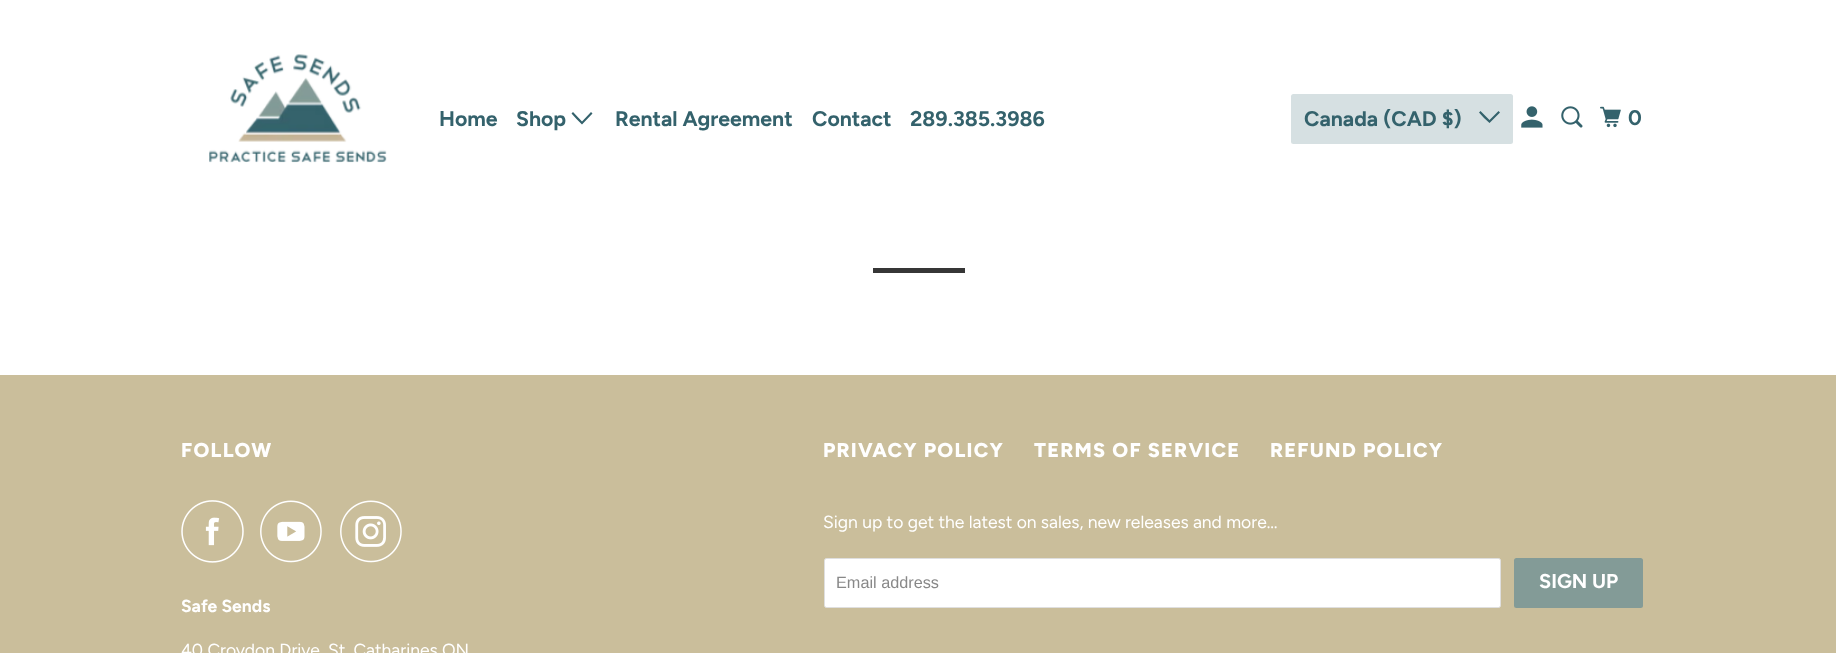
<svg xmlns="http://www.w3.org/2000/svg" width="1836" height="653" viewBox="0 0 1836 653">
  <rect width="100%" height="100%" fill="#fff"/>
  <image x="209" y="54" width="178" height="109" href="img/1.png"/>
  <path d="M576.5 119L571.5 113.5L573 112L582 121.5L591 112L592.5 113.5L582 124.5Z" fill="#34626c"/>
  <rect x="1291" y="94" width="222" height="50" rx="2.5" fill="#d6e0e2"/>
  <path d="M1484 118L1479 112.5L1480.5 111L1489.5 120L1498.5 111L1500 112.5L1489.5 123Z" fill="#34626c"/>
  <image x="1521" y="106" width="22" height="22" href="img/2.png"/>
  <image x="1561" y="106" width="22" height="22" href="img/3.png"/>
  <image x="1600" y="106" width="21" height="22" href="img/4.png"/>
  <path d="M873 268h92v5H873z" fill="#363636"/>
  <path d="M0 375h1836v278H0z" fill="#cabe9b"/>
  <image x="181" y="500" width="63" height="63" href="img/5.png"/>
  <image x="260" y="500" width="62" height="63" href="img/6.png"/>
  <image x="340" y="500" width="62" height="63" href="img/7.png"/>
  <rect x="824.5" y="558.5" width="676" height="49" rx="2" fill="#fff" stroke="#dfdfdf"/>
  <rect x="1514" y="558" width="129" height="50" rx="2.5" fill="#839b97"/>
  <g font-family="Figtree" font-size="21.25" font-weight="bold" fill="#34626c">
    <text x="439" y="126">Home</text>
    <text x="516" y="126">Shop</text>
    <text x="615" y="126">Rental Agreement</text>
    <text x="812" y="126">Contact</text>
    <text x="910" y="126">289.385.3986</text>
    <text x="1304" y="126">Canada (CAD $)</text>
    <text x="1628" y="125">0</text>
  </g>
  <text x="181" y="457" font-family="Figtree" font-size="20" font-weight="800" letter-spacing="1.25" fill="#fff">FOLLOW</text>
  <text x="181" y="612" font-family="Figtree" font-size="17.5" font-weight="bold" fill="#fff">Safe Sends</text>
  <text x="181" y="656" font-family="Figtree" font-size="17.5" fill="#fff">40 Croydon Drive, St. Catharines ON</text>
  <g font-family="Figtree" font-size="20" font-weight="800" letter-spacing="1.25" fill="#fff">
    <text x="823" y="457">PRIVACY POLICY</text>
    <text x="1034" y="457">TERMS OF SERVICE</text>
    <text x="1270" y="457">REFUND POLICY</text>
  </g>
  <text x="823" y="528" font-family="Figtree" font-size="17.5" fill="#fff">Sign up to get the latest on sales, new releases and more…</text>
  <text x="836" y="588" font-family="Liberation Sans" font-size="16.25" fill="#888">Email address</text>
  <text x="1539" y="588" font-family="Figtree" font-size="20" font-weight="bold" fill="#fff">SIGN UP</text>
</svg>
